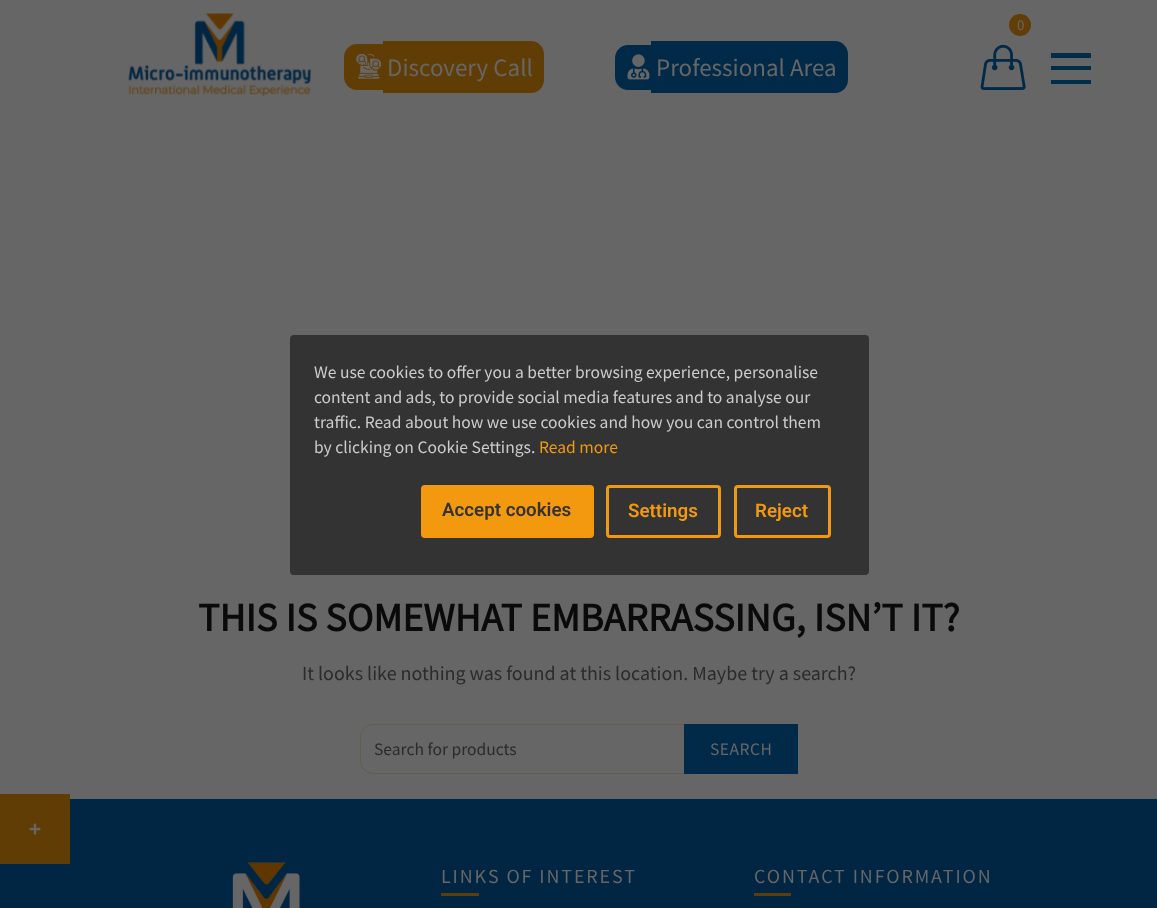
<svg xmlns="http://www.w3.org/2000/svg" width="1157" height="908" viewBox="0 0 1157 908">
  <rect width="100%" height="100%" fill="#666"/>
  <image x="128" y="13" width="184" height="84" href="img/1.png"/>
  <circle cx="1020" cy="25" r="11" fill="#613d07"/>
  <image x="980" y="44" width="46" height="46" href="img/2.png"/>
  <path d="M1051 66h40v4H1051z" fill="#002d4a"/>
  <path d="M1051 53h40v5H1051z" fill="#002d4a"/>
  <path d="M1051 80h40v4H1051z" fill="#002d4a"/>
  <path d="M357 44H383V90H357C350 90 344 84 344 77V57C344 50 350 44 357 44Z" fill="#613d06"/>
  <path d="M383 41H531C538 41 544 47 544 54V80C544 87 538 93 531 93H383Z" fill="#613d06"/>
  <image x="356" y="54" width="25" height="25" href="img/3.png"/>
  <path d="M628 45H651V90H628C621 90 615 84 615 77V58C615 51 621 45 628 45Z" fill="#002a48"/>
  <path d="M651 41H835C842 41 848 47 848 54V80C848 87 842 93 835 93H651Z" fill="#002a48"/>
  <image x="627" y="54" width="23" height="26" href="img/4.png"/>
  <rect x="360.5" y="724.5" width="437" height="49" rx="12.5" fill="none" stroke="#645c4c"/>
  <path d="M684 724h114v50H684z" fill="#002a48"/>
  <path d="M0 799h1157v109H0z" fill="#002643"/>
  <image x="232" y="862" width="68" height="46" href="img/5.png"/>
  <path d="M441 893h38v3H441z" fill="#613d06"/>
  <path d="M754 893h37v3H754z" fill="#613d06"/>
  <rect x="290" y="335" width="579" height="240" rx="4" fill="#333"/>
  <rect x="421" y="485" width="173" height="53" rx="4" fill="#f39910"/>
  <rect x="607.5" y="486.5" width="112" height="50" rx="2.5" fill="none" stroke="#f39910" stroke-width="3"/>
  <rect x="735.5" y="486.5" width="94" height="50" rx="2.5" fill="none" stroke="#f39910" stroke-width="3"/>
  <path d="M0 794h70v70H0z" fill="#613d06"/>
  <image x="29" y="823" width="12" height="12" href="img/6.png"/>
  <text x="1017" y="30" font-family="Source Sans Pro" font-size="15" fill="#666">0</text>
  <g font-family="Source Sans Pro" font-size="25" fill="#666">
    <text x="387" y="76">Discovery Call</text>
    <text x="656" y="76">Professional Area</text>
  </g>
  <text x="198" y="631" font-family="Source Sans Pro" font-size="40" font-weight="bold" fill="#0b0a0a">THIS IS SOMEWHAT EMBARRASSING, ISN’T IT?</text>
  <text x="302" y="680" font-family="Source Sans Pro" font-size="20" fill="#2b2b2b">It looks like nothing was found at this location. Maybe try a search?</text>
  <text x="374" y="755" font-family="Source Sans Pro" font-size="17.5" fill="#2b2b2b">Search for products</text>
  <text x="710" y="755" font-family="Source Sans Pro" font-size="17.5" letter-spacing="0.5" fill="#666">SEARCH</text>
  <g font-family="Source Sans Pro" font-size="20" letter-spacing="1.9" fill="#666">
    <text x="441" y="883">LINKS OF INTEREST</text>
    <text x="754" y="883">CONTACT INFORMATION</text>
  </g>
  <g font-family="Source Sans Pro" font-size="17.5" fill="#ccc">
    <text x="314" y="378">We use cookies to offer you a better browsing experience, personalise</text>
    <text x="314" y="403">content and ads, to provide social media features and to analyse our</text>
    <text x="314" y="428">traffic. Read about how we use cookies and how you can control them</text>
    <text x="314" y="453">by clicking on Cookie Settings.</text>
  </g>
  <text x="539" y="453" font-family="Source Sans Pro" font-size="17.5" fill="#f39910">Read more</text>
  <text x="442" y="516" font-family="Roboto" font-size="18.75" font-weight="600" fill="#333">Accept cookies</text>
  <g font-family="Roboto" font-size="18.75" font-weight="600" fill="#f39910">
    <text x="628" y="517">Settings</text>
    <text x="755" y="517">Reject</text>
  </g>
</svg>
